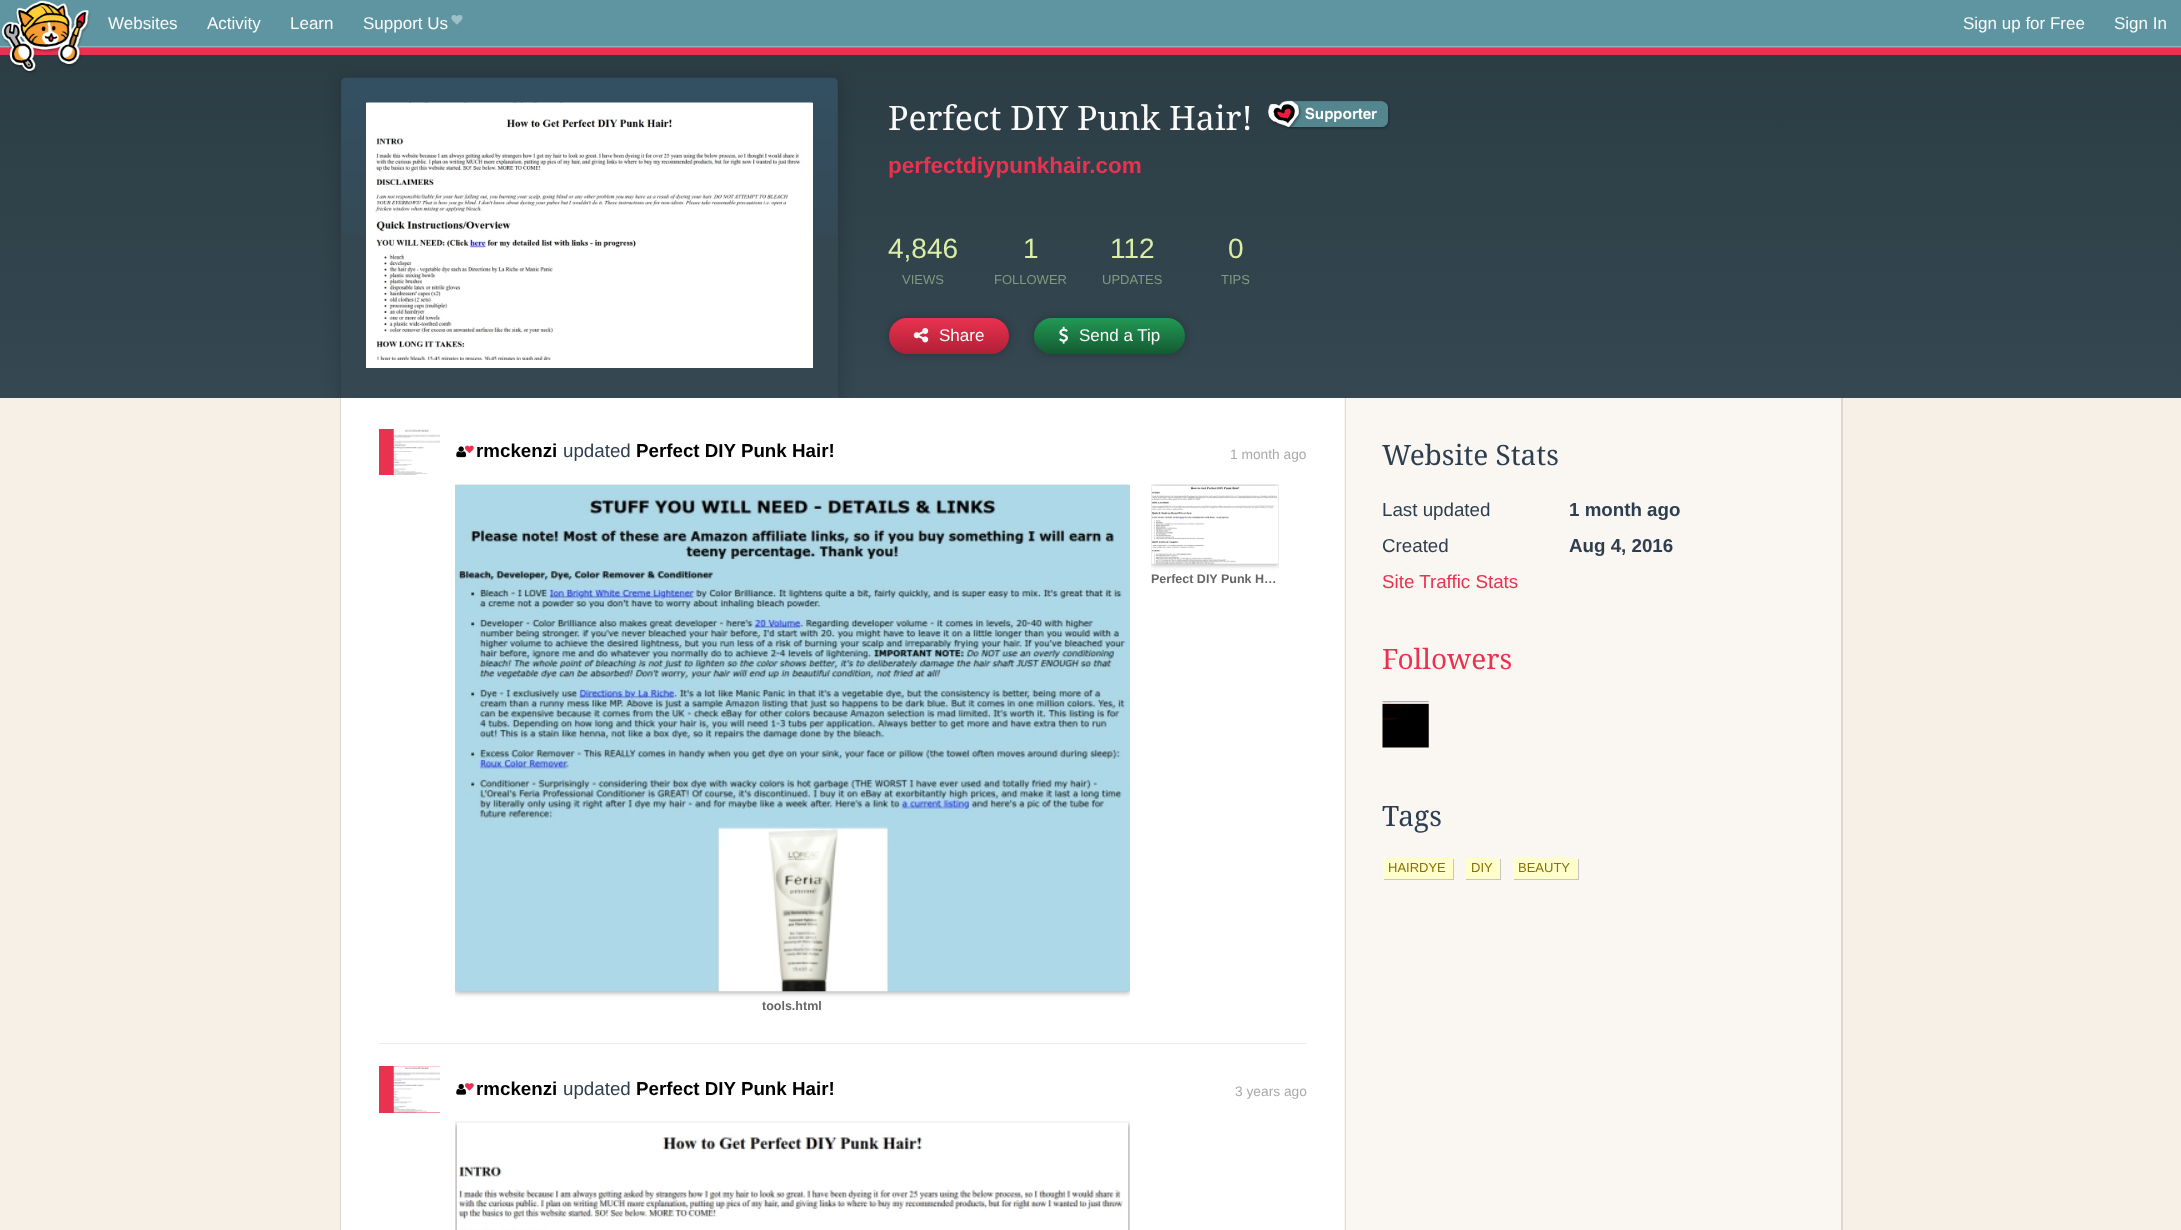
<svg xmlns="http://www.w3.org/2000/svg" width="2181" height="1230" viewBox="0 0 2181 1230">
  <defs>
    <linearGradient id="g1" gradientUnits="userSpaceOnUse" x1="1091" y1="27" x2="1091" y2="398"><stop offset="0" stop-color="#2b3c43"/><stop offset="1" stop-color="#354751"/></linearGradient>
    <clipPath id="clip1"><path d="M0 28h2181v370H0z"/></clipPath>
    <linearGradient id="g2" gradientUnits="userSpaceOnUse" x1="949" y1="318" x2="949" y2="354"><stop offset="0" stop-color="#e93250"/><stop offset="1" stop-color="#b11f36"/></linearGradient>
    <linearGradient id="g3" gradientUnits="userSpaceOnUse" x1="1109" y1="318" x2="1109" y2="354"><stop offset="0" stop-color="#229954"/><stop offset="1" stop-color="#145a32"/></linearGradient>
    <clipPath id="clip2"><path d="M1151 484h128v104H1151z"/></clipPath>
    <clipPath id="clip3"><path d="M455 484h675v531H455z"/></clipPath>
    <clipPath id="clip4"><path d="M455 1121h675v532H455z"/></clipPath>
  </defs>
  <rect width="100%" height="100%" fill="#f6f0e6"/>
  <path d="M0 55h2181v343H0z" fill="url(#g1)"/>
  <g clip-path="url(#clip1)">
    <rect x="340" y="78" width="501" height="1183" rx="8" fill="#00000026" filter="blur(7.5px)"/>
  </g>
  <path d="M0 48h2181v7H0z" fill="#e93250"/>
  <path d="M0 0h2181v48H0z" fill="#5e95a1"/>
  <path d="M0 46h2181v1H0z" fill="#92b4bd"/>
  <image x="1" y="0" width="90" height="73" href="img/1.png"/>
  <image x="451" y="15" width="12" height="10" href="img/2.png"/>
  <path d="M346 78H833C836 78 838 80 838 83V398H341V83C341 80 343 78 346 78Z" fill="#354751"/>
  <image x="341" y="77" width="497" height="158" href="img/3.png"/>
  <image x="366" y="102" width="447" height="258" href="img/4.png"/>
  <path d="M370 107h439v257H370z" fill="none" stroke="#fff" stroke-width="8"/>
  <image x="1268" y="100" width="122" height="30" href="img/5.png"/>
  <rect x="889" y="318" width="120" height="36" rx="18" fill="#00000040" filter="blur(4px)"/>
  <rect x="889" y="318" width="120" height="36" rx="18" fill="url(#g2)"/>
  <image x="913" y="328" width="16" height="15" href="img/6.png"/>
  <rect x="1034" y="318" width="151" height="36" rx="18" fill="#00000040" filter="blur(4px)"/>
  <rect x="1034" y="318" width="151" height="36" rx="18" fill="url(#g3)"/>
  <image x="1059" y="326" width="9" height="18" href="img/7.png"/>
  <path d="M340 398h1503v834H340z" fill="#0000001a" filter="blur(0.5px)"/>
  <path d="M1344 398h497v832H1344z" fill="#faf6f1"/>
  <path d="M1345 398h1v832H1345z" fill="#ddd"/>
  <path d="M341 398h1003v832H341z" fill="#fff"/>
  <path d="M379 429h15v46H379z" fill="#e93250"/>
  <image x="393" y="429" width="47" height="46" href="img/8.png"/>
  <image x="456" y="446" width="11" height="12" href="img/9.png"/>
  <image x="465" y="445" width="9" height="9" href="img/10.png"/>
  <g clip-path="url(#clip2)">
    <path d="M1151 486h128v79H1151z" fill="#0000004d" filter="blur(2.5px)"/>
  </g>
  <image x="1151" y="486" width="128" height="78" href="img/11.png"/>
  <g clip-path="url(#clip3)">
    <path d="M455 486h675v507H455z" fill="#0000004d" filter="blur(2.5px)"/>
  </g>
  <image x="455" y="485" width="675" height="507" href="img/12.png"/>
  <path d="M379 1043h927v1H379z" fill="#ebebeb"/>
  <path d="M379 1066h61v47H379z" fill="#e93250"/>
  <image x="393" y="1066" width="47" height="47" href="img/13.png"/>
  <image x="456" y="1083" width="11" height="12" href="img/14.png"/>
  <image x="465" y="1083" width="9" height="8" href="img/15.png"/>
  <g clip-path="url(#clip4)">
    <path d="M455 1124h675v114H455z" fill="#0000004d" filter="blur(2.5px)"/>
  </g>
  <image x="457" y="1122" width="671" height="108" href="img/16.png"/>
  <image x="1382" y="701" width="47" height="47" href="img/17.png"/>
  <path d="M1384 859h70v21H1384z" fill="#00000033" filter="blur(0.5px)"/>
  <path d="M1383 858h70v21H1383z" fill="#ffc"/>
  <path d="M1466 859h35v21H1466z" fill="#00000033" filter="blur(0.5px)"/>
  <path d="M1465 858h35v21H1465z" fill="#ffc"/>
  <path d="M1514 859h65v21H1514z" fill="#00000033" filter="blur(0.5px)"/>
  <path d="M1513 858h65v21H1513z" fill="#ffc"/>
  <g font-family="Liberation Sans" font-size="17" fill="#fafafa">
    <text x="108" y="29">Websites</text>
    <text x="207" y="29">Activity</text>
    <text x="290" y="29">Learn</text>
    <text x="363" y="29">Support Us</text>
    <text x="1963" y="29">Sign up for Free</text>
    <text x="2114" y="29">Sign In</text>
  </g>
  <text x="888" y="130" font-family="Droid Serif" font-size="33.75" fill="#fafafa">Perfect DIY Punk Hair!</text>
  <text x="888" y="173" font-family="Liberation Sans" font-size="22.5" font-weight="bold" fill="#e93250">perfectdiypunkhair.com</text>
  <text x="888" y="258" font-family="Liberation Sans" font-size="28" fill="#daeea5">4,846</text>
  <text x="902" y="284" font-family="Liberation Sans" font-size="13" fill="#84997e">VIEWS</text>
  <text x="1023" y="258" font-family="Liberation Sans" font-size="28" fill="#daeea5">1</text>
  <text x="994" y="284" font-family="Liberation Sans" font-size="13" fill="#84997e">FOLLOWER</text>
  <text x="1110" y="258" font-family="Liberation Sans" font-size="28" fill="#daeea5">112</text>
  <text x="1102" y="284" font-family="Liberation Sans" font-size="13" fill="#84997e">UPDATES</text>
  <text x="1228" y="258" font-family="Liberation Sans" font-size="28" fill="#daeea5">0</text>
  <text x="1221" y="284" font-family="Liberation Sans" font-size="13" fill="#84997e">TIPS</text>
  <g font-family="Liberation Sans" font-size="17" fill="#fafafa">
    <text x="939" y="341">Share</text>
    <text x="1079" y="341">Send a Tip</text>
  </g>
  <text x="476" y="457" font-family="Liberation Sans" font-size="18.75" font-weight="bold" fill="#000">rmckenzi</text>
  <text x="563" y="457" font-family="Liberation Sans" font-size="18.75" fill="#2c3e50">updated</text>
  <text x="636" y="457" font-family="Liberation Sans" font-size="18.75" font-weight="bold" fill="#000">Perfect DIY Punk Hair!</text>
  <text x="1230" y="459" font-family="Liberation Sans" font-size="13.75" fill="#aaa">1 month ago</text>
  <g font-family="Liberation Sans" font-size="12.5" font-weight="bold" fill="#666">
    <text x="1151" y="583">Perfect DIY Punk H…</text>
    <text x="762" y="1010">tools.html</text>
  </g>
  <text x="476" y="1095" font-family="Liberation Sans" font-size="18.75" font-weight="bold" fill="#000">rmckenzi</text>
  <text x="563" y="1095" font-family="Liberation Sans" font-size="18.75" fill="#2c3e50">updated</text>
  <text x="636" y="1095" font-family="Liberation Sans" font-size="18.75" font-weight="bold" fill="#000">Perfect DIY Punk Hair!</text>
  <text x="1235" y="1096" font-family="Liberation Sans" font-size="13.75" fill="#aaa">3 years ago</text>
  <text x="1382" y="465" font-family="Droid Serif" font-size="28" fill="#2c3e50">Website Stats</text>
  <text x="1382" y="516" font-family="Liberation Sans" font-size="18.75" fill="#2c3e50">Last updated</text>
  <text x="1569" y="516" font-family="Liberation Sans" font-size="18.75" font-weight="bold" fill="#2c3e50">1 month ago</text>
  <text x="1382" y="552" font-family="Liberation Sans" font-size="18.75" fill="#2c3e50">Created</text>
  <text x="1569" y="552" font-family="Liberation Sans" font-size="18.75" font-weight="bold" fill="#2c3e50">Aug 4, 2016</text>
  <text x="1382" y="588" font-family="Liberation Sans" font-size="18.75" fill="#e93250">Site Traffic Stats</text>
  <text x="1382" y="669" font-family="Droid Serif" font-size="28" fill="#e93250">Followers</text>
  <text x="1382" y="826" font-family="Droid Serif" font-size="28" fill="#2c3e50">Tags</text>
  <g font-family="Liberation Sans" font-size="13" fill="#897106">
    <text x="1388" y="872">HAIRDYE</text>
    <text x="1471" y="872">DIY</text>
    <text x="1518" y="872">BEAUTY</text>
  </g>
</svg>
